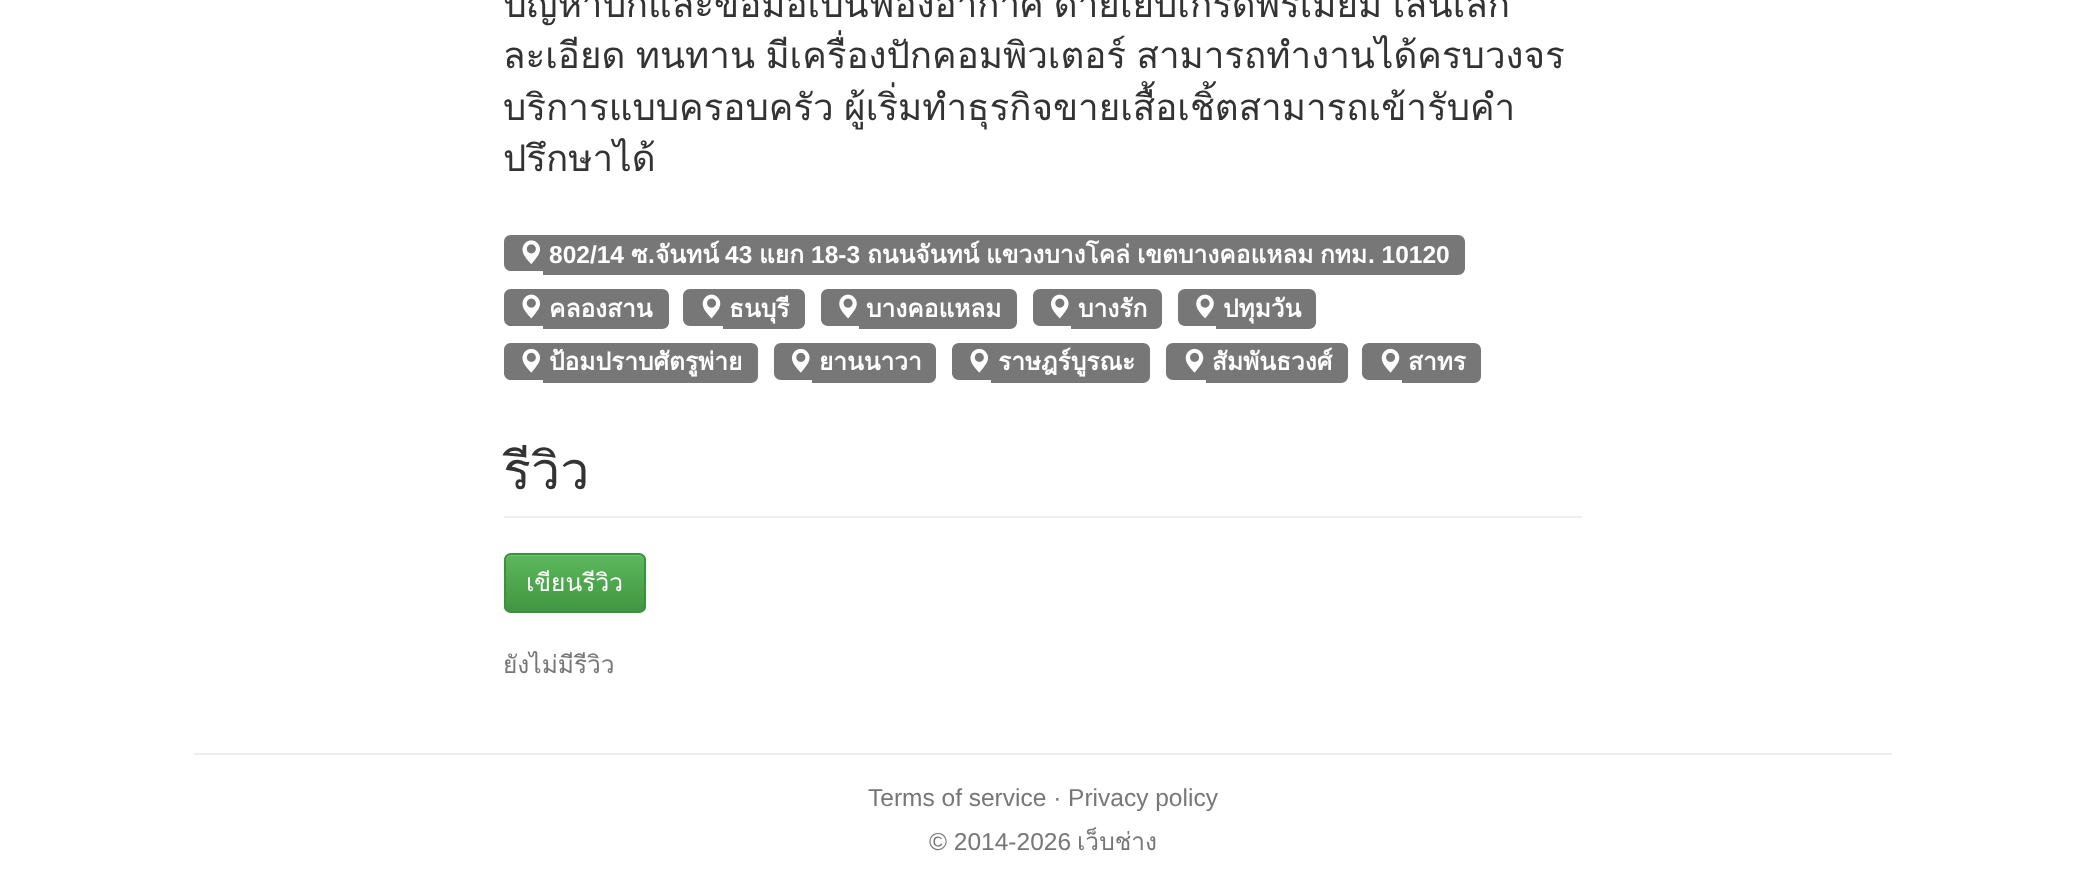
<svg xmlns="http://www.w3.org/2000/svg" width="2085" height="894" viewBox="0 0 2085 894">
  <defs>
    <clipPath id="clip1"><rect x="504" y="553" width="142" height="60" rx="7"/></clipPath>
    <linearGradient id="g1" gradientUnits="userSpaceOnUse" x1="575" y1="555" x2="575" y2="611"><stop offset="0" stop-color="#5cb85c"/><stop offset="1" stop-color="#419641"/></linearGradient>
  </defs>
  <rect width="100%" height="100%" fill="#fff"/>
  <path d="M511 235H543V271H511C507 271 504 268 504 264V242C504 238 507 235 511 235Z" fill="#777"/>
  <path d="M543 235H1458C1462 235 1465 238 1465 242V268C1465 272 1462 275 1458 275H543Z" fill="#777"/>
  <image x="522" y="240" width="18" height="24" href="img/1.png"/>
  <path d="M511 289H543V326H511C507 326 504 323 504 319V296C504 292 507 289 511 289Z" fill="#777"/>
  <path d="M543 289H662C666 289 669 292 669 296V322C669 326 666 329 662 329H543Z" fill="#777"/>
  <image x="522" y="294" width="18" height="25" href="img/2.png"/>
  <path d="M690 289H723V326H690C686 326 683 323 683 319V296C683 292 686 289 690 289Z" fill="#777"/>
  <path d="M723 289H798C802 289 805 292 805 296V322C805 326 802 329 798 329H723Z" fill="#777"/>
  <image x="702" y="294" width="19" height="25" href="img/3.png"/>
  <path d="M828 289H859V326H828C824 326 821 323 821 319V296C821 292 824 289 828 289Z" fill="#777"/>
  <path d="M859 289H1010C1014 289 1017 292 1017 296V322C1017 326 1014 329 1010 329H859Z" fill="#777"/>
  <image x="839" y="294" width="18" height="25" href="img/4.png"/>
  <path d="M1040 289H1071V326H1040C1036 326 1033 323 1033 319V296C1033 292 1036 289 1040 289Z" fill="#777"/>
  <path d="M1071 289H1155C1159 289 1162 292 1162 296V322C1162 326 1159 329 1155 329H1071Z" fill="#777"/>
  <image x="1051" y="294" width="18" height="25" href="img/5.png"/>
  <path d="M1185 289H1216V326H1185C1181 326 1178 323 1178 319V296C1178 292 1181 289 1185 289Z" fill="#777"/>
  <path d="M1216 289H1309C1313 289 1316 292 1316 296V322C1316 326 1313 329 1309 329H1216Z" fill="#777"/>
  <image x="1196" y="294" width="18" height="25" href="img/4.png"/>
  <path d="M511 343H543V380H511C507 380 504 377 504 373V350C504 346 507 343 511 343Z" fill="#777"/>
  <path d="M543 343H751C755 343 758 346 758 350V376C758 380 755 383 751 383H543Z" fill="#777"/>
  <path d="M781 343H812V380H781C777 380 774 377 774 373V350C774 346 777 343 781 343Z" fill="#777"/>
  <path d="M812 343H929C933 343 936 346 936 350V376C936 380 933 383 929 383H812Z" fill="#777"/>
  <image x="792" y="348" width="18" height="25" href="img/7.png"/>
  <path d="M959 343H991V380H959C955 380 952 377 952 373V350C952 346 955 343 959 343Z" fill="#777"/>
  <path d="M991 343H1143C1147 343 1150 346 1150 350V376C1150 380 1147 383 1143 383H991Z" fill="#777"/>
  <image x="970" y="348" width="18" height="25" href="img/8.png"/>
  <path d="M1173 343H1206V380H1173C1169 380 1166 377 1166 373V350C1166 346 1169 343 1173 343Z" fill="#777"/>
  <path d="M1206 343H1341C1345 343 1348 346 1348 350V376C1348 380 1345 383 1341 383H1206Z" fill="#777"/>
  <path d="M1369 343H1402V380H1369C1365 380 1362 377 1362 373V350C1362 346 1365 343 1369 343Z" fill="#777"/>
  <path d="M1402 343H1474C1478 343 1481 346 1481 350V376C1481 380 1478 383 1474 383H1402Z" fill="#777"/>
  <image x="1381" y="348" width="19" height="25" href="img/10.png"/>
  <path d="M504 516h1078v2H504z" fill="#eee"/>
  <rect x="504" y="555" width="142" height="59" rx="7" fill="#00000012" filter="blur(1px)"/>
  <g clip-path="url(#clip1)">
    <path d="M504 555h142v56H504z" fill="url(#g1)"/>
  </g>
  <path d="M511 556H639C642 556 644 559 644 562V560C644 557 642 555 639 555H511C508 555 506 557 506 560V562C506 559 508 556 511 556Z" fill="#74c374"/>
  <rect x="505" y="554" width="140" height="58" rx="6" fill="none" stroke="#3e8f3e" stroke-width="2"/>
  <path d="M194 753h1698v2H194z" fill="#eee"/>
  <g font-family="Loma" font-size="36.75" fill="#333">
    <text x="503" y="17" word-spacing="-2">ปัญหาปกและข้อมือเป็นฟองอากาศ ด้ายเย็บเกรดพรีเมี่ยม เส้นเล็ก</text>
    <text x="503" y="68" word-spacing="-2">ละเอียด ทนทาน มีเครื่องปักคอมพิวเตอร์ สามารถทำงานได้ครบวงจร</text>
    <text x="503" y="120" word-spacing="-2">บริการแบบครอบครัว ผู้เริ่มทำธุรกิจขายเสื้อเชิ้ตสามารถเข้ารับคำ</text>
    <text x="503" y="171">ปรึกษาได้</text>
  </g>
  <text x="549" y="263" font-family="Liberation Sans" font-size="24.5" font-weight="bold" fill="#fff">802/14</text>
  <text x="631" y="263" font-family="Loma" font-size="24.5" font-weight="bold" fill="#fff">ซ</text>
  <text x="725" y="263" font-family="Liberation Sans" font-size="24.5" font-weight="bold" fill="#fff">43</text>
  <text x="759" y="263" font-family="Loma" font-size="24.5" font-weight="bold" fill="#fff">แยก</text>
  <text x="811" y="263" font-family="Liberation Sans" font-size="24.5" font-weight="bold" fill="#fff">18-3</text>
  <g font-family="Loma" font-size="24.5" font-weight="bold" fill="#fff">
    <text x="867" y="263">ถนนจันทน์</text>
    <text x="986" y="263">แขวงบางโคล่</text>
    <text x="1137" y="263">เขตบางคอแหลม</text>
    <text x="1320" y="263">กทม</text>
  </g>
  <g font-family="Liberation Sans" font-size="24.5" font-weight="bold" fill="#fff">
    <text x="1368" y="263">. 10120</text>
    <text x="648" y="263">.</text>
  </g>
  <g font-family="Loma" font-size="24.5" font-weight="bold" fill="#fff">
    <text x="655" y="263">จันทน์</text>
    <text x="549" y="317">คลองสาน</text>
    <text x="729" y="317">ธนบุรี</text>
    <text x="866" y="317">บางคอแหลม</text>
    <text x="1078" y="317">บางรัก</text>
    <text x="1223" y="317">ปทุมวัน</text>
    <text x="549" y="370">ป้อมปราบศัตรูพ่าย</text>
  </g>
  <image x="522" y="348" width="18" height="25" href="img/6.png"/>
  <g font-family="Loma" font-size="24.5" font-weight="bold" fill="#fff">
    <text x="819" y="370">ยานนาวา</text>
    <text x="998" y="370">ราษฎร์บูรณะ</text>
    <text x="1212" y="370">สัมพันธวงศ์</text>
  </g>
  <image x="1185" y="348" width="19" height="25" href="img/9.png"/>
  <text x="1408" y="370" font-family="Loma" font-size="24.5" font-weight="bold" fill="#fff">สาทร</text>
  <text x="503" y="489" font-family="Loma" font-size="52" fill="#333">รีวิว</text>
  <text x="526" y="591" font-family="Loma" font-size="24.5" fill="#fff">เขียนรีวิว</text>
  <text x="503" y="673" font-family="Loma" font-size="24.5" fill="#777">ยังไม่มีรีวิว</text>
  <g font-family="Liberation Sans" font-size="24.5" fill="#777">
    <text x="868" y="806">Terms of service · Privacy policy</text>
    <text x="929" y="850">© 2014-2026</text>
  </g>
  <text x="1077" y="850" font-family="Loma" font-size="24.5" fill="#777">เว็บช่าง</text>
</svg>
